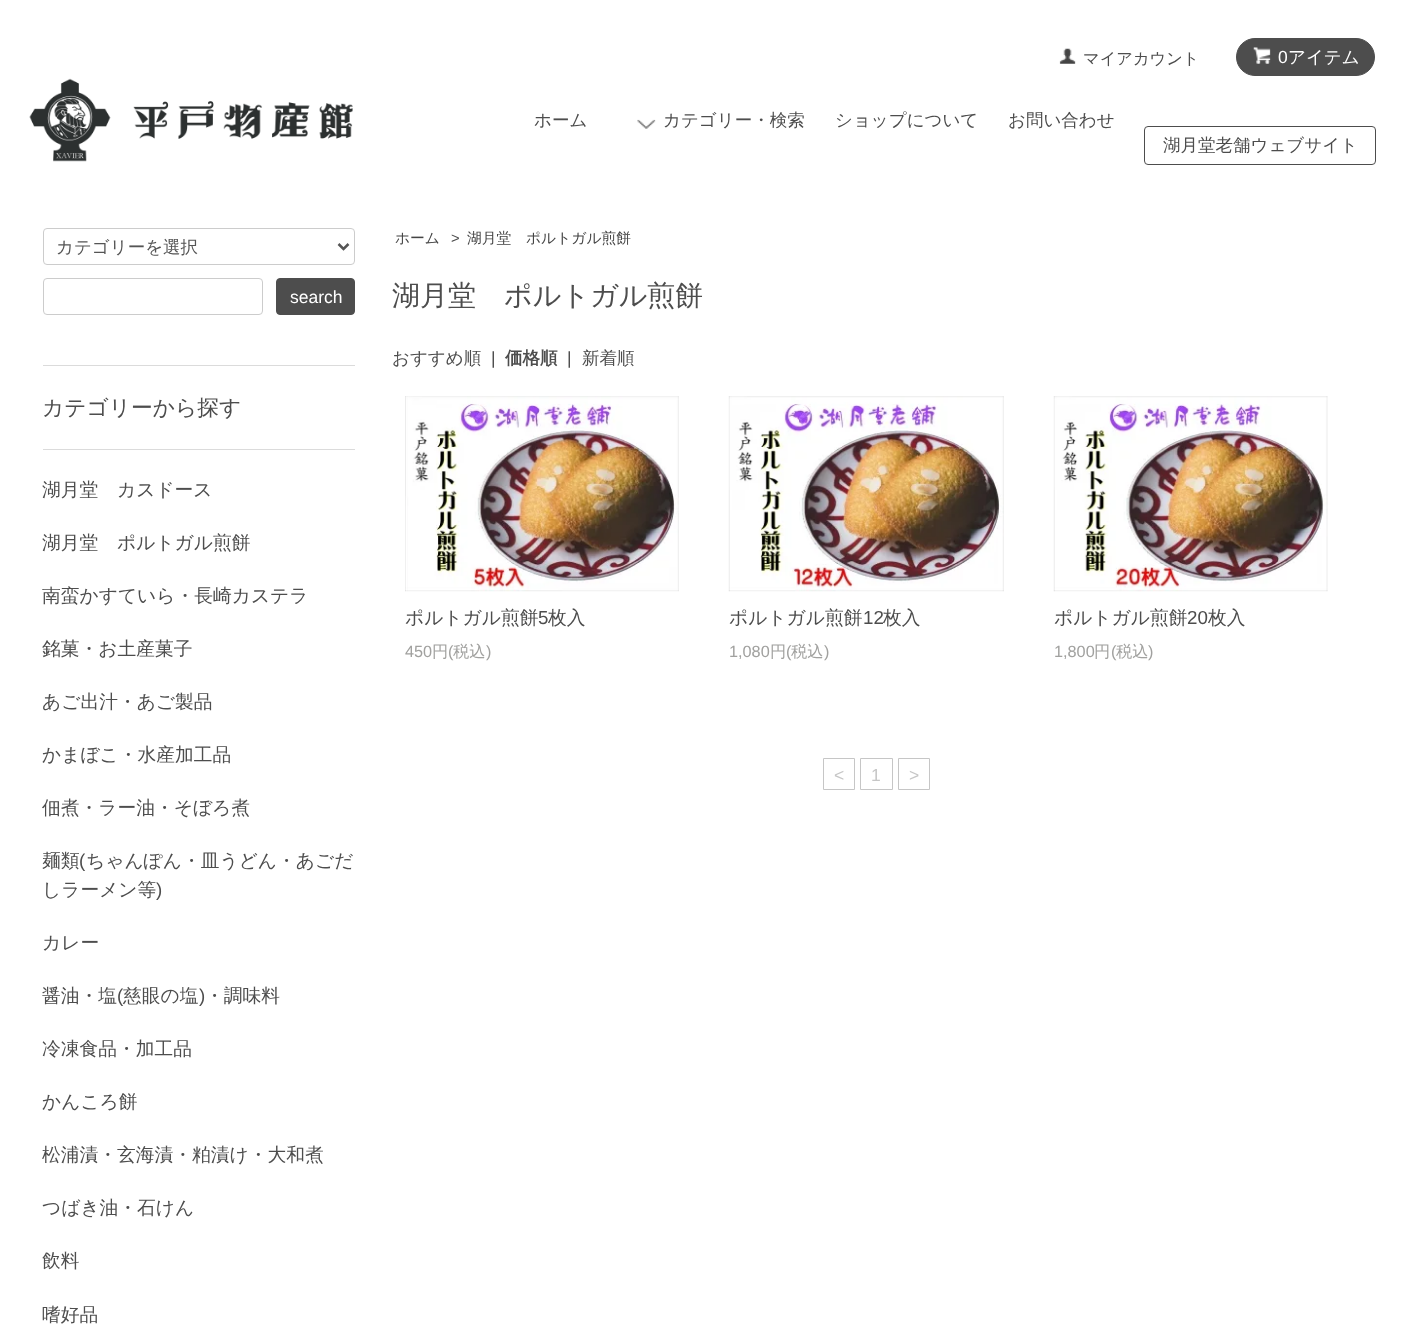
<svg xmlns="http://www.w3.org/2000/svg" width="1417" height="1329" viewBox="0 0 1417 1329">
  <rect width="100%" height="100%" fill="#fff"/>
  <image x="1059" y="48" width="17" height="16" href="img/1.png"/>
  <rect x="1236.5" y="38.5" width="138" height="37" rx="18.5" fill="#4d4d4d" stroke="#4d4d4d"/>
  <image x="1253" y="47" width="18" height="17" href="img/2.png"/>
  <image x="29" y="78" width="324" height="84" href="img/3.png"/>
  <image x="637" y="119" width="19" height="10" href="img/4.png"/>
  <rect x="1144.5" y="126.5" width="231" height="38" rx="3.5" fill="none" stroke="#4d4d4d"/>
  <rect x="43.5" y="228.5" width="311" height="36" rx="3.5" fill="none" stroke="#ccc"/>
  <path d="M338.5 244L343.5 249L348.5 244" fill="none" stroke="#555" stroke-width="2.5"/>
  <rect x="43.5" y="278.5" width="219" height="36" rx="3.5" fill="none" stroke="#ccc"/>
  <rect x="276.5" y="278.5" width="78" height="36" rx="3.5" fill="#4d4d4d" stroke="#4d4d4d"/>
  <path d="M43 365h312v1H43z" fill="#dbdbdb"/>
  <path d="M43 449h312v1H43z" fill="#dbdbdb"/>
  <image x="405" y="396" width="274" height="196" href="img/5.png"/>
  <image x="728" y="396" width="276" height="196" href="img/6.png"/>
  <image x="1053" y="396" width="275" height="196" href="img/7.png"/>
  <path d="M823.5 758.5h31v31H823.5z" fill="none" stroke="#c6c6c6"/>
  <path d="M860.5 758.5h32v31H860.5z" fill="none" stroke="#c6c6c6"/>
  <path d="M898.5 758.5h31v31H898.5z" fill="none" stroke="#c6c6c6"/>
  <text x="1083" y="64" font-family="WenQuanYi Zen Hei" font-size="16.25" font-weight="500" fill="#4d4d4d">マイアカウント</text>
  <text x="1278" y="63" font-family="Liberation Sans" font-size="17.5" fill="#fff">0</text>
  <text x="1288" y="63" font-family="WenQuanYi Zen Hei" font-size="17.5" font-weight="500" fill="#fff">アイテム</text>
  <g font-family="WenQuanYi Zen Hei" font-size="17.5" font-weight="500" fill="#4d4d4d">
    <text x="534" y="126">ホーム</text>
    <text x="663" y="126">カテゴリー・検索</text>
    <text x="835" y="126">ショップについて</text>
    <text x="1008" y="126">お問い合わせ</text>
    <text x="1163" y="151">湖月堂老舗ウェブサイト</text>
  </g>
  <text x="56" y="253" font-family="WenQuanYi Zen Hei" font-size="17.5" font-weight="500" fill="#555">カテゴリーを選択</text>
  <text x="290" y="303" font-family="Liberation Sans" font-size="17.5" fill="#fff">search</text>
  <text x="42" y="415" font-family="WenQuanYi Zen Hei" font-size="21.75" font-weight="500" fill="#4d4d4d">カテゴリーから探す</text>
  <g font-family="WenQuanYi Zen Hei" font-size="18.75" font-weight="500" fill="#4d4d4d">
    <text x="42" y="496">湖月堂　カスドース</text>
    <text x="42" y="549">湖月堂　ポルトガル煎餅</text>
    <text x="42" y="602">南蛮かすていら・長崎カステラ</text>
    <text x="42" y="655">銘菓・お土産菓子</text>
    <text x="42" y="708">あご出汁・あご製品</text>
    <text x="42" y="761">かまぼこ・水産加工品</text>
    <text x="42" y="814">佃煮・ラー油・そぼろ煮</text>
    <text x="42" y="867">麺類</text>
  </g>
  <text x="79" y="867" font-family="Liberation Sans" font-size="18.75" fill="#4d4d4d">(</text>
  <g font-family="WenQuanYi Zen Hei" font-size="18.75" font-weight="500" fill="#4d4d4d">
    <text x="86" y="867">ちゃんぽん・皿うどん・あごだ</text>
    <text x="42" y="896">しラーメン等</text>
  </g>
  <text x="156" y="896" font-family="Liberation Sans" font-size="18.75" fill="#4d4d4d">)</text>
  <g font-family="WenQuanYi Zen Hei" font-size="18.75" font-weight="500" fill="#4d4d4d">
    <text x="42" y="949">カレー</text>
    <text x="42" y="1002">醤油・塩</text>
  </g>
  <text x="117" y="1002" font-family="Liberation Sans" font-size="18.75" fill="#4d4d4d">(</text>
  <text x="123" y="1002" font-family="WenQuanYi Zen Hei" font-size="18.75" font-weight="500" fill="#4d4d4d">慈眼の塩</text>
  <text x="199" y="1002" font-family="Liberation Sans" font-size="18.75" fill="#4d4d4d">)</text>
  <g font-family="WenQuanYi Zen Hei" font-size="18.75" font-weight="500" fill="#4d4d4d">
    <text x="205" y="1002">・調味料</text>
    <text x="42" y="1055">冷凍食品・加工品</text>
    <text x="42" y="1108">かんころ餅</text>
    <text x="42" y="1161">松浦漬・玄海漬・粕漬け・大和煮</text>
    <text x="42" y="1214">つばき油・石けん</text>
    <text x="42" y="1267">飲料</text>
    <text x="42" y="1321">嗜好品</text>
  </g>
  <text x="395" y="243" font-family="WenQuanYi Zen Hei" font-size="14.75" font-weight="500" fill="#444">ホーム</text>
  <text x="451" y="243" font-family="Liberation Sans" font-size="14.75" fill="#4d4d4d">&gt;</text>
  <text x="467" y="243" font-family="WenQuanYi Zen Hei" font-size="14.75" font-weight="500" fill="#444">湖月堂　ポルトガル煎餅</text>
  <text x="392" y="305" font-family="WenQuanYi Zen Hei" font-size="28" font-weight="500" fill="#4d4d4d">湖月堂　ポルトガル煎餅</text>
  <text x="392" y="364" font-family="WenQuanYi Zen Hei" font-size="17.5" font-weight="500" fill="#4d4d4d">おすすめ順</text>
  <text x="491" y="364" font-family="Liberation Sans" font-size="17.5" fill="#4d4d4d">|</text>
  <text x="505" y="364" font-family="WenQuanYi Zen Hei" font-size="17.5" font-weight="bold" fill="#4d4d4d">価格順</text>
  <text x="567" y="364" font-family="Liberation Sans" font-size="17.5" fill="#4d4d4d">|</text>
  <text x="582" y="364" font-family="WenQuanYi Zen Hei" font-size="17.5" font-weight="500" fill="#4d4d4d">新着順</text>
  <text x="405" y="624" font-family="WenQuanYi Zen Hei" font-size="18.75" font-weight="500" fill="#4d4d4d">ポルトガル煎餅</text>
  <text x="538" y="624" font-family="Liberation Sans" font-size="18.75" fill="#4d4d4d">5</text>
  <text x="548" y="624" font-family="WenQuanYi Zen Hei" font-size="18.75" font-weight="500" fill="#4d4d4d">枚入</text>
  <text x="405" y="657" font-family="Liberation Sans" font-size="16.25" fill="#a1a19f">450</text>
  <text x="432" y="657" font-family="WenQuanYi Zen Hei" font-size="16.25" font-weight="500" fill="#a1a19f">円</text>
  <text x="448" y="657" font-family="Liberation Sans" font-size="16.25" fill="#a1a19f">(</text>
  <text x="453" y="657" font-family="WenQuanYi Zen Hei" font-size="16.25" font-weight="500" fill="#a1a19f">税込</text>
  <text x="486" y="657" font-family="Liberation Sans" font-size="16.25" fill="#a1a19f">)</text>
  <text x="729" y="624" font-family="WenQuanYi Zen Hei" font-size="18.75" font-weight="500" fill="#4d4d4d">ポルトガル煎餅</text>
  <text x="863" y="624" font-family="Liberation Sans" font-size="18.75" fill="#4d4d4d">12</text>
  <text x="883" y="624" font-family="WenQuanYi Zen Hei" font-size="18.75" font-weight="500" fill="#4d4d4d">枚入</text>
  <text x="729" y="657" font-family="Liberation Sans" font-size="16.25" fill="#a1a19f">1,080</text>
  <text x="770" y="657" font-family="WenQuanYi Zen Hei" font-size="16.25" font-weight="500" fill="#a1a19f">円</text>
  <text x="786" y="657" font-family="Liberation Sans" font-size="16.25" fill="#a1a19f">(</text>
  <text x="791" y="657" font-family="WenQuanYi Zen Hei" font-size="16.25" font-weight="500" fill="#a1a19f">税込</text>
  <text x="824" y="657" font-family="Liberation Sans" font-size="16.25" fill="#a1a19f">)</text>
  <text x="1054" y="624" font-family="WenQuanYi Zen Hei" font-size="18.75" font-weight="500" fill="#4d4d4d">ポルトガル煎餅</text>
  <text x="1187" y="624" font-family="Liberation Sans" font-size="18.75" fill="#4d4d4d">20</text>
  <text x="1208" y="624" font-family="WenQuanYi Zen Hei" font-size="18.75" font-weight="500" fill="#4d4d4d">枚入</text>
  <text x="1054" y="657" font-family="Liberation Sans" font-size="16.25" fill="#a1a19f">1,800</text>
  <text x="1094" y="657" font-family="WenQuanYi Zen Hei" font-size="16.25" font-weight="500" fill="#a1a19f">円</text>
  <text x="1111" y="657" font-family="Liberation Sans" font-size="16.25" fill="#a1a19f">(</text>
  <text x="1116" y="657" font-family="WenQuanYi Zen Hei" font-size="16.25" font-weight="500" fill="#a1a19f">税込</text>
  <text x="1148" y="657" font-family="Liberation Sans" font-size="16.25" fill="#a1a19f">)</text>
  <g font-family="Liberation Sans" font-size="17.5" fill="#c6c6c6">
    <text x="834" y="781">&lt;</text>
    <text x="871" y="781">1</text>
    <text x="909" y="781">&gt;</text>
  </g>
</svg>
